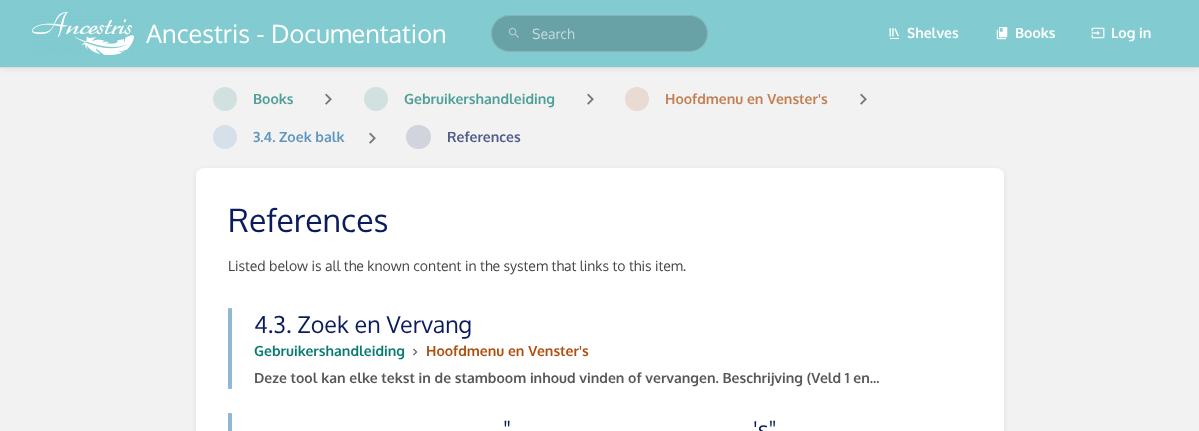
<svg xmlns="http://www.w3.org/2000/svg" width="1199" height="431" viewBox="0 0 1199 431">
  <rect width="100%" height="100%" fill="#f2f2f2"/>
  <path d="M1 2h1197v66H1z" fill="#0000001a" filter="blur(3px)"/>
  <path d="M0 0h1199v67H0z" fill="#82cbd0"/>
  <path d="M0 67h1199v1H0z" fill="#ddd"/>
  <image x="32" y="12" width="102" height="43" href="img/1.png"/>
  <rect x="491" y="15" width="217" height="37" rx="18.5" fill="#68a2a6"/>
  <rect x="491.5" y="15.5" width="216" height="36" rx="18" fill="none" stroke="#ffffff33"/>
  <image x="508" y="27" width="11" height="11" href="img/2.png"/>
  <image x="889" y="28" width="10" height="11" href="img/3.png"/>
  <image x="996" y="27" width="12" height="13" href="img/4.png"/>
  <image x="1091" y="27" width="14" height="12" href="img/5.png"/>
  <circle cx="225" cy="99" r="12" fill="#d1e1e0"/>
  <image x="325" y="93" width="7" height="12" href="img/6.png"/>
  <circle cx="376" cy="99" r="12" fill="#d1e1e0"/>
  <image x="587" y="93" width="7" height="12" href="img/6.png"/>
  <circle cx="637" cy="99" r="12" fill="#e9dbd2"/>
  <image x="860" y="93" width="7" height="12" href="img/6.png"/>
  <circle cx="225" cy="137" r="12" fill="#d5e0e8"/>
  <image x="369" y="132" width="7" height="12" href="img/6.png"/>
  <rect x="406" y="125" width="25" height="24" rx="12" fill="#d2d4dd"/>
  <rect x="197" y="170" width="806" height="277" rx="7" fill="#0000001a" filter="blur(3px)"/>
  <rect x="196" y="168" width="808" height="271" rx="8" fill="#fff"/>
  <rect x="228" y="308" width="4" height="81" rx="1" fill="#90b7d3"/>
  <image x="413" y="348" width="5" height="8" href="img/7.png"/>
  <rect x="228" y="413" width="4" height="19" rx="1" fill="#90b7d3"/>
  <text x="146" y="43" font-family="Oxygen" font-size="25.25" fill="#fff">Ancestris - Documentation</text>
  <text x="532" y="39" font-family="Oxygen" font-size="14" fill="#c3dadb">Search</text>
  <g font-family="Oxygen" font-size="14" font-weight="bold" fill="#fff">
    <text x="907" y="38">Shelves</text>
    <text x="1015" y="38">Books</text>
    <text x="1111" y="38">Log in</text>
  </g>
  <g font-family="Oxygen" font-size="14" font-weight="bold" fill="#4e9f97">
    <text x="253" y="104">Books</text>
    <text x="404" y="104">Gebruikershandleiding</text>
  </g>
  <text x="665" y="104" font-family="Oxygen" font-size="14" font-weight="bold" fill="#c37f52">Hoofdmenu en Venster's</text>
  <text x="253" y="142" font-family="Oxygen" font-size="14" font-weight="bold" fill="#5f96be">3.4. Zoek balk</text>
  <text x="447" y="142" font-family="Oxygen" font-size="14" font-weight="bold" fill="#505c89">References</text>
  <text x="228" y="232" font-family="Oxygen" font-size="32" fill="#0b1c5c">References</text>
  <text x="228" y="271" font-family="Oxygen" font-size="14" fill="#444">Listed below is all the known content in the system that links to this item.</text>
  <text x="254" y="333" font-family="Oxygen" font-size="23.25" fill="#0b1c5c">4.3. Zoek en Vervang</text>
  <text x="254" y="356" font-family="Oxygen" font-size="14" font-weight="bold" fill="#077b70">Gebruikershandleiding</text>
  <text x="426" y="356" font-family="Oxygen" font-size="14" font-weight="bold" fill="#af4d0d">Hoofdmenu en Venster's</text>
  <text x="254" y="383" font-family="Oxygen" font-size="14" font-weight="bold" fill="#575757">Deze tool kan elke tekst in de stamboom inhoud vinden of vervangen. Beschrijving (Veld 1 en...</text>
  <g font-family="Oxygen" font-size="23.25" fill="#0b1c5c">
    <text x="503" y="438">"</text>
    <text x="753" y="438">'s"</text>
  </g>
</svg>
